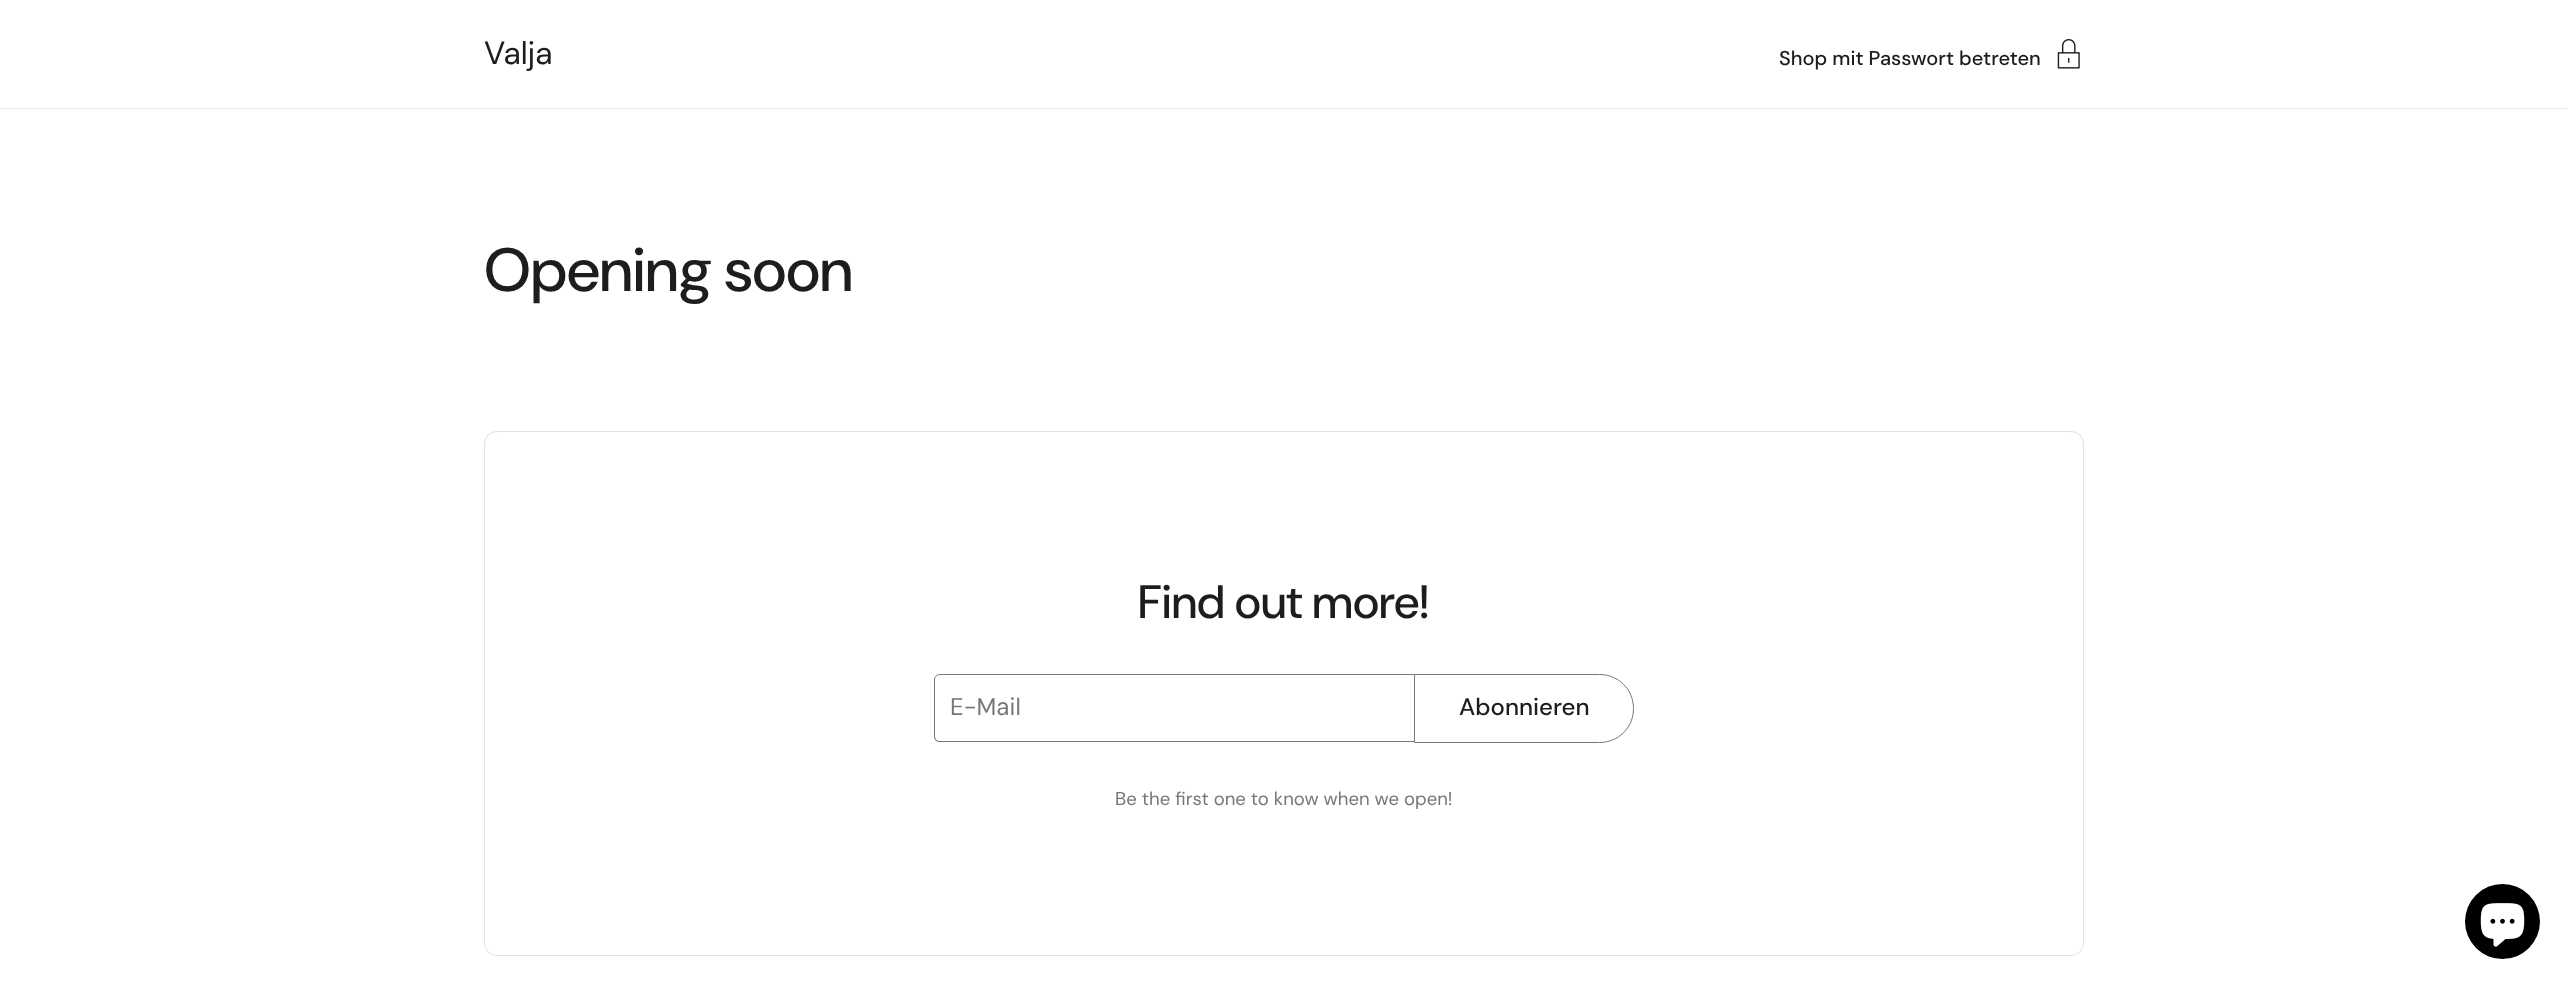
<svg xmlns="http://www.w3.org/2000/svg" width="2567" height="985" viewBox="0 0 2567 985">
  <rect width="100%" height="100%" fill="#fff"/>
  <path d="M0 108h2567v1H0z" fill="#e8e8e8"/>
  <image x="2057" y="39" width="23" height="30" href="img/1.png"/>
  <rect x="484.5" y="431.5" width="1599" height="524" rx="12.5" fill="none" stroke="#e1e1e1"/>
  <path d="M940 674H1414V742H940C937 742 934 740 934 736V680C934 677 937 674 940 674ZM940 675H1414V741H940C937 741 935 739 935 736V680C935 677 937 675 940 675Z" fill="#777" fill-rule="evenodd"/>
  <path d="M1414.5 674.5H1599.5C1618.5 674.5 1633.5 689.5 1633.5 708.5C1633.5 727.5 1618.5 742.5 1599.5 742.5H1414.5Z" fill="none" stroke="#777"/>
  <circle cx="2502.5" cy="921.5" r="37.5" fill="#000"/>
  <image x="2480" y="903" width="45" height="44" href="img/2.png"/>
  <text x="484" y="64" font-family="'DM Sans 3'" font-size="32" fill="#1d1d1d">Valja</text>
  <text x="1779" y="65" font-family="'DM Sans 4'" font-size="20" font-weight="500" fill="#1d1d1d">Shop mit Passwort betreten</text>
  <text x="484" y="291" font-family="DM Sans" font-size="61.25" font-weight="500" fill="#1d1d1d">Opening soon</text>
  <text x="1138" y="618" font-family="'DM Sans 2'" font-size="46.75" font-weight="500" fill="#1d1d1d">Find out more!</text>
  <text x="950" y="715" font-family="DM Sans" font-size="24" fill="#777">E-Mail</text>
  <text x="1459" y="715" font-family="'DM Sans 3'" font-size="24" font-weight="500" fill="#1d1d1d">Abonnieren</text>
  <text x="1115" y="805" font-family="'DM Sans 2'" font-size="18.6" fill="#777">Be the first one to know when we open!</text>
</svg>
